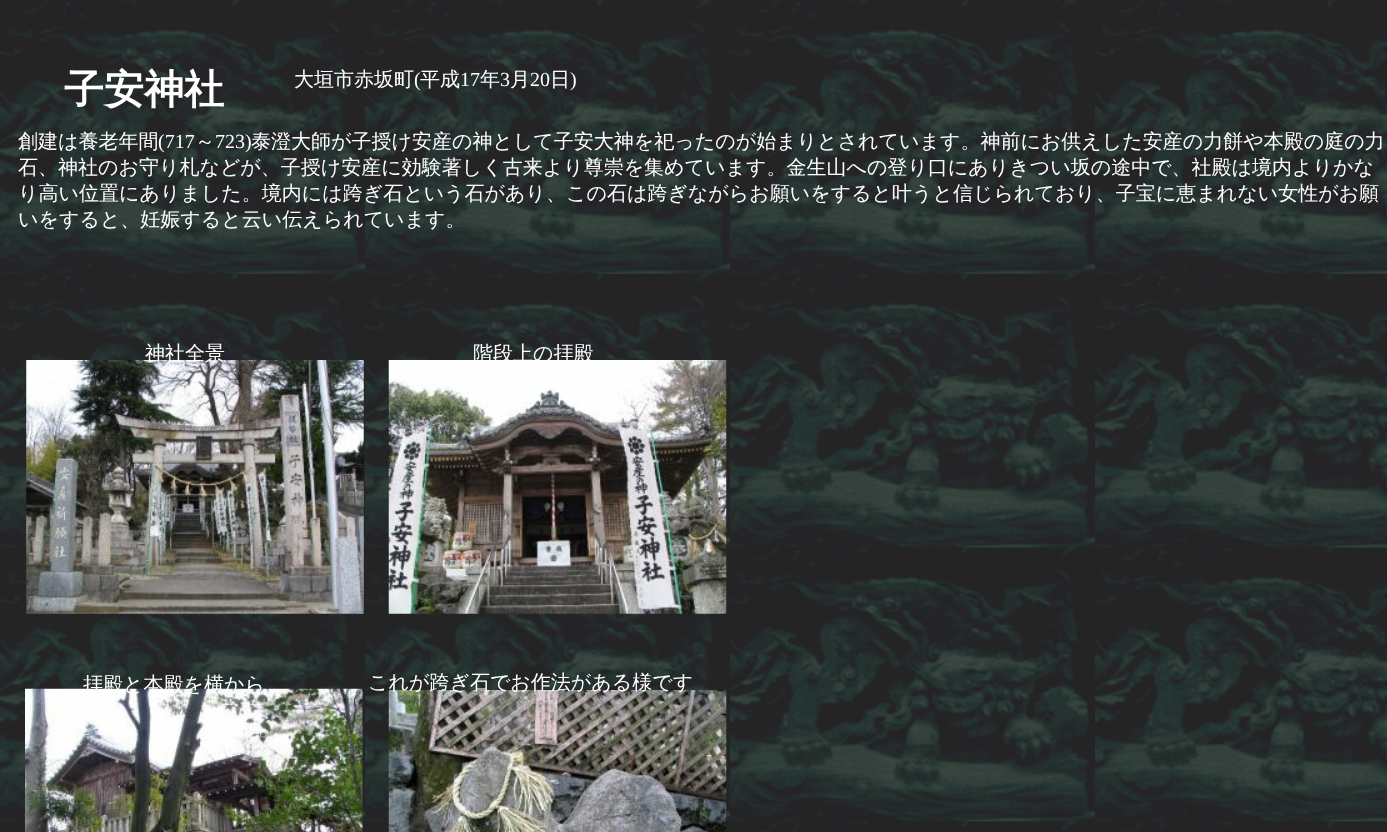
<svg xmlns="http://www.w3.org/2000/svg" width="1387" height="832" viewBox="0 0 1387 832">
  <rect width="100%" height="100%" fill="#fff"/>
  <image x="0" y="0" width="1387" height="832" href="img/1.png"/>
  <image x="26" y="360" width="338" height="254" href="img/2.png"/>
  <image x="388" y="360" width="339" height="254" href="img/3.png"/>
  <image x="25" y="688" width="338" height="144" href="img/4.png"/>
  <image x="388" y="690" width="339" height="142" href="img/5.png"/>
  <text x="64" y="103" font-family="WenQuanYi Zen Hei" font-size="40" font-weight="bold" fill="#fff">子安神社</text>
  <text x="294" y="86" font-family="WenQuanYi Zen Hei" font-size="20" font-weight="500" fill="#fff">大垣市赤坂町</text>
  <text x="414" y="86" font-family="Liberation Serif" font-size="20" fill="#fff">(</text>
  <text x="420" y="86" font-family="WenQuanYi Zen Hei" font-size="20" font-weight="500" fill="#fff">平成</text>
  <text x="460" y="86" font-family="Liberation Serif" font-size="20" fill="#fff">17</text>
  <text x="480" y="86" font-family="WenQuanYi Zen Hei" font-size="20" font-weight="500" fill="#fff">年</text>
  <text x="500" y="86" font-family="Liberation Serif" font-size="20" fill="#fff">3</text>
  <text x="510" y="86" font-family="WenQuanYi Zen Hei" font-size="20" font-weight="500" fill="#fff">月</text>
  <text x="530" y="86" font-family="Liberation Serif" font-size="20" fill="#fff">20</text>
  <text x="550" y="86" font-family="WenQuanYi Zen Hei" font-size="20" font-weight="500" fill="#fff">日</text>
  <text x="570" y="86" font-family="Liberation Serif" font-size="20" fill="#fff">)</text>
  <text x="18" y="148" font-family="WenQuanYi Zen Hei" font-size="20" font-weight="500" fill="#fff">創建は養老年間</text>
  <text x="158" y="148" font-family="Liberation Serif" font-size="20" fill="#fff">(717</text>
  <text x="195" y="148" font-family="WenQuanYi Zen Hei" font-size="20" font-weight="500" fill="#fff">～</text>
  <text x="215" y="148" font-family="Liberation Serif" font-size="20" fill="#fff">723)</text>
  <g font-family="WenQuanYi Zen Hei" font-size="20" font-weight="500" fill="#fff">
    <text x="251" y="148">泰澄大師が子授け安産の神として子安大神を祀ったのが始まりとされています。神前にお供えした安産の力餅や本殿の庭の力</text>
    <text x="18" y="174">石、神社のお守り札などが、子授け安産に効験著しく古来より尊崇を集めています。金生山への登り口にありきつい坂の途中で、社殿は境内よりかな</text>
    <text x="18" y="200">り高い位置にありました。境内には跨ぎ石という石があり、この石は跨ぎながらお願いをすると叶うと信じられており、子宝に恵まれない女性がお願</text>
    <text x="18" y="226">いをすると、妊娠すると云い伝えられています。</text>
    <text x="145" y="360">神社全景</text>
    <text x="473" y="360">階段上の拝殿</text>
    <text x="83" y="691">拝殿と本殿を横から</text>
    <text x="368" y="689">これが跨ぎ石でお作法がある様です</text>
  </g>
</svg>
